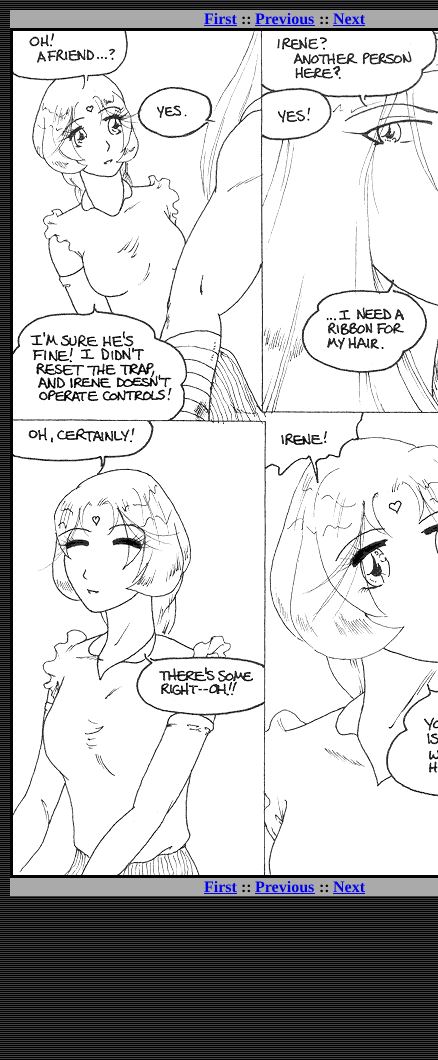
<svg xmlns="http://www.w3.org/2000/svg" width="438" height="1060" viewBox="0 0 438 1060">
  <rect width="100%" height="100%" fill="#000"/>
  <image x="0" y="0" width="438" height="1059" href="img/1.png"/>
  <path d="M10 10h428v886H10z" fill="#aaa"/>
  <path d="M204 25h33v1H204z" fill="#00e"/>
  <path d="M255 25h60v1H255z" fill="#00e"/>
  <path d="M333 25h32v1H333z" fill="#00e"/>
  <image x="10" y="28" width="428" height="850" href="img/2.png"/>
  <path d="M204 893h33v1H204z" fill="#00e"/>
  <path d="M255 893h60v1H255z" fill="#00e"/>
  <path d="M333 893h32v1H333z" fill="#00e"/>
  <text x="204" y="24" font-family="Liberation Serif" font-size="16" font-weight="bold" fill="#00e">First</text>
  <text x="241" y="24" font-family="Liberation Serif" font-size="16" font-weight="bold" fill="#000">::</text>
  <text x="255" y="24" font-family="Liberation Serif" font-size="16" font-weight="bold" fill="#00e">Previous</text>
  <text x="319" y="24" font-family="Liberation Serif" font-size="16" font-weight="bold" fill="#000">::</text>
  <g font-family="Liberation Serif" font-size="16" font-weight="bold" fill="#00e">
    <text x="333" y="24">Next</text>
    <text x="204" y="892">First</text>
  </g>
  <text x="241" y="892" font-family="Liberation Serif" font-size="16" font-weight="bold" fill="#000">::</text>
  <text x="255" y="892" font-family="Liberation Serif" font-size="16" font-weight="bold" fill="#00e">Previous</text>
  <text x="319" y="892" font-family="Liberation Serif" font-size="16" font-weight="bold" fill="#000">::</text>
  <text x="333" y="892" font-family="Liberation Serif" font-size="16" font-weight="bold" fill="#00e">Next</text>
</svg>
